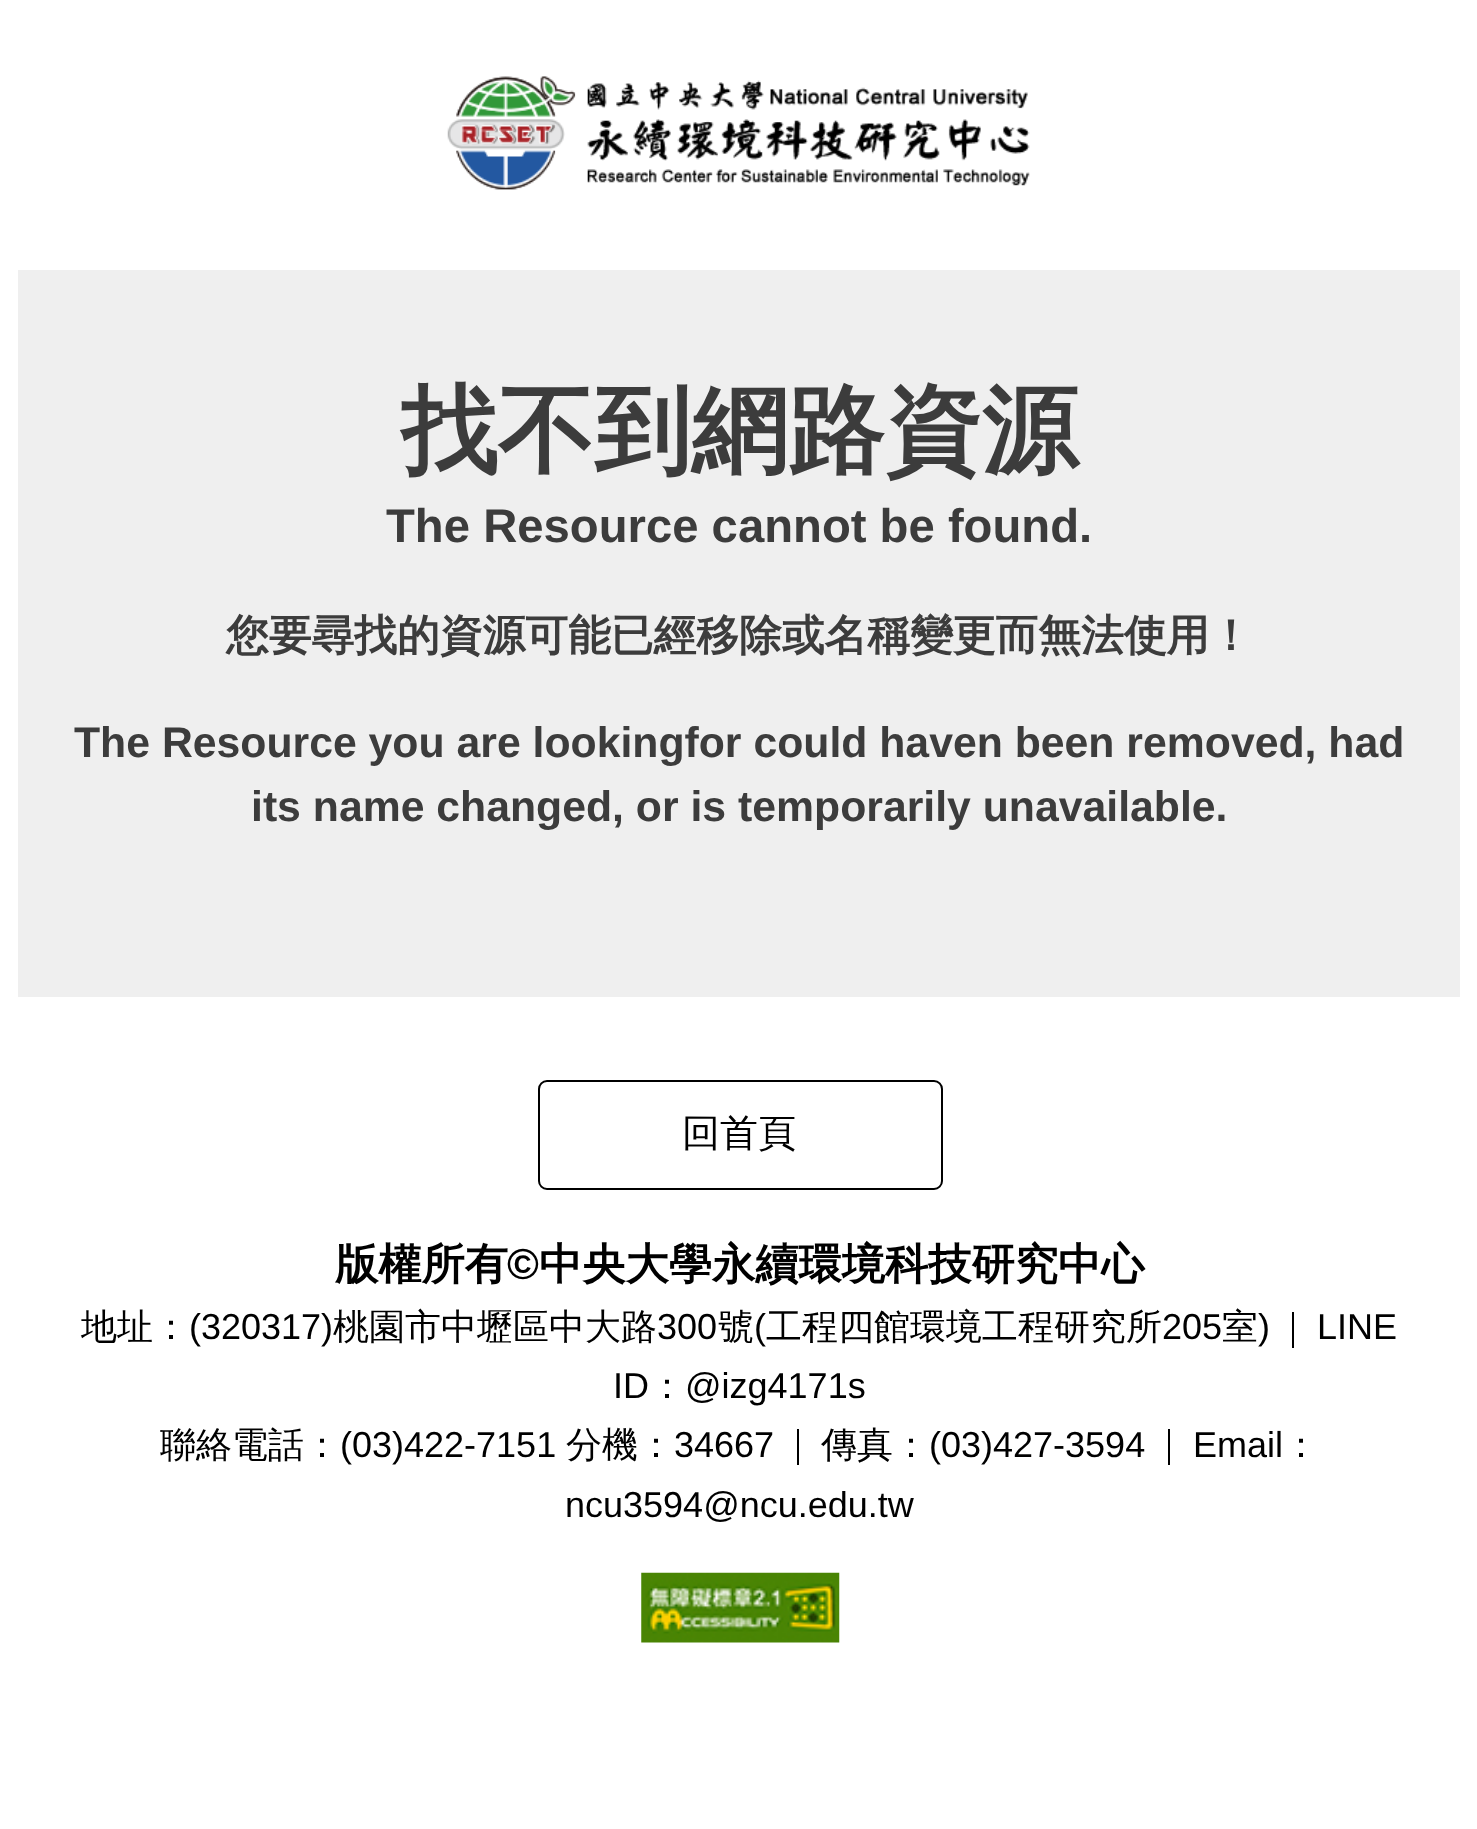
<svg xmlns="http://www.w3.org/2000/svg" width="1477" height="1829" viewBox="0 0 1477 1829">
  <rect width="100%" height="100%" fill="#fff"/>
  <image x="447" y="76" width="583" height="114" href="img/1.png"/>
  <path d="M18 270h1442v727H18z" fill="#efefef"/>
  <rect x="539" y="1081" width="403" height="108" rx="8" fill="none" stroke="#000" stroke-width="2"/>
  <path d="M1292 1312h2v36H1292z" fill="#000"/>
  <path d="M797 1429h2v36H797z" fill="#000"/>
  <path d="M1168 1429h2v36H1168z" fill="#000"/>
  <image x="641" y="1572" width="199" height="71" href="img/2.png"/>
  <text x="401" y="464" font-family="WenQuanYi Zen Hei" font-size="96.75" font-weight="bold" fill="#3c3c3c">找不到網路資源</text>
  <text x="386" y="542" font-family="Liberation Sans" font-size="47.25" font-weight="bold" fill="#3c3c3c">The Resource cannot be found.</text>
  <text x="226" y="650" font-family="WenQuanYi Zen Hei" font-size="42.75" font-weight="bold" fill="#3c3c3c">您要尋找的資源可能已經移除或名稱變更而無法使用！</text>
  <g font-family="Liberation Sans" font-size="42.75" font-weight="bold" fill="#3c3c3c">
    <text x="74" y="757">The Resource you are lookingfor could haven been removed, had</text>
    <text x="251" y="821">its name changed, or is temporarily unavailable.</text>
  </g>
  <text x="682" y="1146" font-family="WenQuanYi Zen Hei" font-size="38" font-weight="500" fill="#000">回首頁</text>
  <text x="335" y="1279" font-family="WenQuanYi Zen Hei" font-size="43.25" font-weight="bold" fill="#000">版權所有</text>
  <text x="507" y="1279" font-family="Liberation Sans" font-size="43.25" font-weight="bold" fill="#000">©</text>
  <text x="539" y="1279" font-family="WenQuanYi Zen Hei" font-size="43.25" font-weight="bold" fill="#000">中央大學永續環境科技研究中心</text>
  <text x="81" y="1339" font-family="WenQuanYi Zen Hei" font-size="36" font-weight="500" fill="#000">地址：</text>
  <text x="189" y="1339" font-family="Liberation Sans" font-size="36" fill="#000">(320317)</text>
  <text x="333" y="1339" font-family="WenQuanYi Zen Hei" font-size="36" font-weight="500" fill="#000">桃園市中壢區中大路</text>
  <text x="657" y="1339" font-family="Liberation Sans" font-size="36" fill="#000">300</text>
  <text x="718" y="1339" font-family="WenQuanYi Zen Hei" font-size="36" font-weight="500" fill="#000">號</text>
  <text x="754" y="1339" font-family="Liberation Sans" font-size="36" fill="#000">(</text>
  <text x="766" y="1339" font-family="WenQuanYi Zen Hei" font-size="36" font-weight="500" fill="#000">工程四館環境工程研究所</text>
  <text x="1162" y="1339" font-family="Liberation Sans" font-size="36" fill="#000">205</text>
  <text x="1222" y="1339" font-family="WenQuanYi Zen Hei" font-size="36" font-weight="500" fill="#000">室</text>
  <g font-family="Liberation Sans" font-size="36" fill="#000">
    <text x="1258" y="1339">)</text>
    <text x="1317" y="1339">LINE</text>
    <text x="613" y="1398">ID</text>
  </g>
  <text x="649" y="1398" font-family="WenQuanYi Zen Hei" font-size="36" font-weight="500" fill="#000">：</text>
  <text x="685" y="1398" font-family="Liberation Sans" font-size="36" fill="#000">@izg4171s</text>
  <text x="160" y="1457" font-family="WenQuanYi Zen Hei" font-size="36" font-weight="500" fill="#000">聯絡電話：</text>
  <text x="340" y="1457" font-family="Liberation Sans" font-size="36" fill="#000">(03)422-7151</text>
  <text x="566" y="1457" font-family="WenQuanYi Zen Hei" font-size="36" font-weight="500" fill="#000">分機：</text>
  <text x="674" y="1457" font-family="Liberation Sans" font-size="36" fill="#000">34667</text>
  <text x="821" y="1457" font-family="WenQuanYi Zen Hei" font-size="36" font-weight="500" fill="#000">傳真：</text>
  <g font-family="Liberation Sans" font-size="36" fill="#000">
    <text x="929" y="1457">(03)427-3594</text>
    <text x="1193" y="1457">Email</text>
  </g>
  <text x="1283" y="1457" font-family="WenQuanYi Zen Hei" font-size="36" font-weight="500" fill="#000">：</text>
  <text x="565" y="1517" font-family="Liberation Sans" font-size="36" fill="#000">ncu3594@ncu.edu.tw</text>
</svg>
